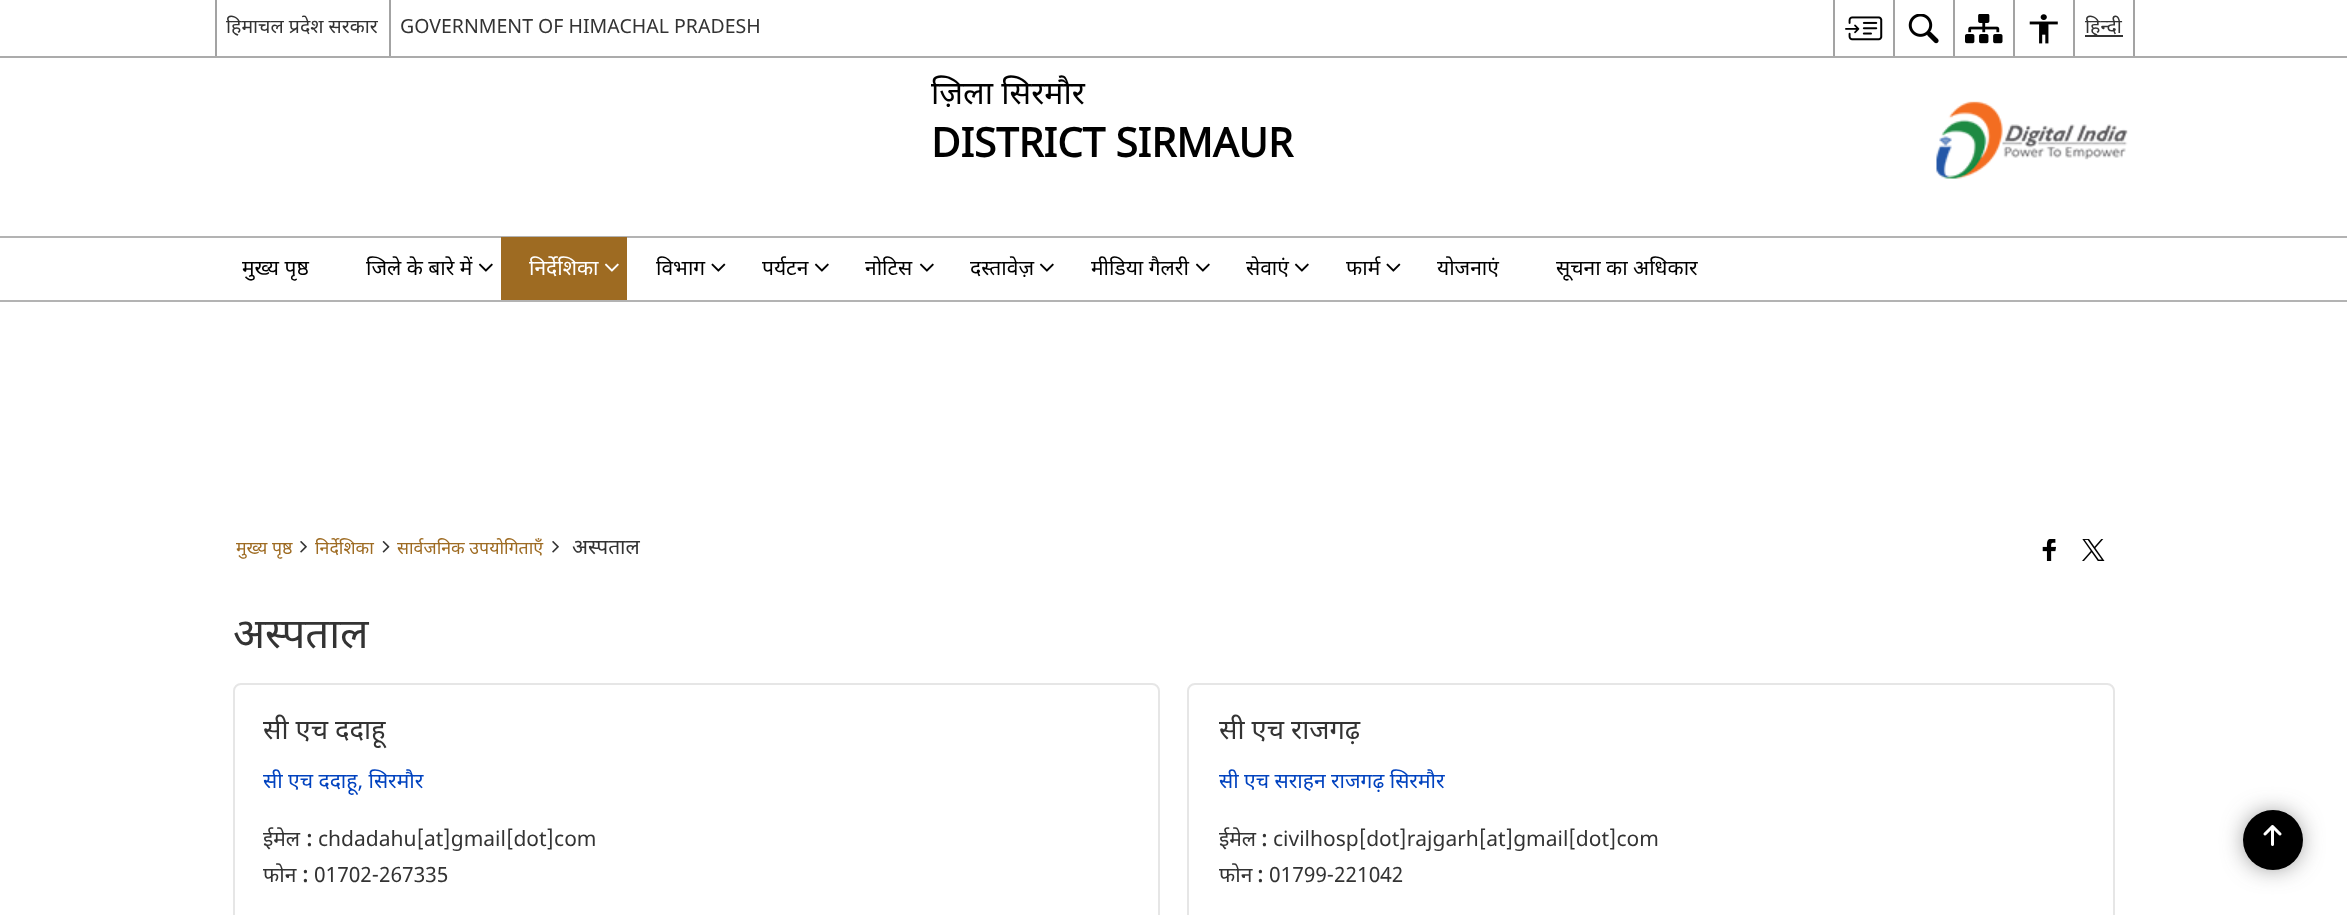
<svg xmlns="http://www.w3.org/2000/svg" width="2347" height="915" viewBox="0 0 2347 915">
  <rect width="100%" height="100%" fill="#fff"/>
  <path d="M0 56h2347v2H0z" fill="#ababab"/>
  <path d="M215 0h2v56H215z" fill="#a3a3a3"/>
  <path d="M389 0h2v56H389z" fill="#a3a3a3"/>
  <path d="M1833 0h2v56H1833z" fill="#a3a3a3"/>
  <image x="1845" y="16" width="38" height="25" href="img/1.png"/>
  <path d="M1893 0h2v56H1893z" fill="#a3a3a3"/>
  <image x="1908" y="14" width="31" height="30" href="img/2.png"/>
  <path d="M1953 0h2v56H1953z" fill="#a3a3a3"/>
  <image x="1965" y="14" width="38" height="30" href="img/3.png"/>
  <path d="M2013 0h2v56H2013z" fill="#a3a3a3"/>
  <image x="2029" y="14" width="29" height="30" href="img/4.png"/>
  <path d="M2133 0h2v56H2133z" fill="#a3a3a3"/>
  <path d="M2073 0h2v56H2073z" fill="#a3a3a3"/>
  <path d="M2085 35h38v2H2085z" fill="#333"/>
  <image x="1936" y="101" width="192" height="78" href="img/5.png"/>
  <path d="M0 236h2347v2H0z" fill="#b3b3b3"/>
  <path d="M0 300h2347v2H0z" fill="#b3b3b3"/>
  <image x="478" y="263" width="15" height="9" href="img/6.png"/>
  <path d="M501 237h126v63H501z" fill="#9e6b22"/>
  <image x="604" y="263" width="15" height="9" href="img/7.png"/>
  <image x="711" y="263" width="15" height="9" href="img/8.png"/>
  <image x="814" y="263" width="15" height="9" href="img/6.png"/>
  <image x="919" y="263" width="15" height="9" href="img/6.png"/>
  <image x="1039" y="263" width="15" height="9" href="img/6.png"/>
  <image x="1195" y="263" width="15" height="9" href="img/6.png"/>
  <image x="1294" y="263" width="15" height="9" href="img/6.png"/>
  <image x="1386" y="263" width="15" height="9" href="img/8.png"/>
  <image x="300" y="541" width="7" height="12" href="img/9.png"/>
  <image x="382" y="541" width="8" height="12" href="img/10.png"/>
  <image x="552" y="541" width="7" height="12" href="img/9.png"/>
  <image x="2042" y="539" width="14" height="22" href="img/11.png"/>
  <image x="2082" y="539" width="23" height="22" href="img/12.png"/>
  <rect x="234" y="684" width="925" height="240" rx="7" fill="none" stroke="#e6e6e6" stroke-width="2"/>
  <rect x="1188" y="684" width="926" height="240" rx="7" fill="none" stroke="#e6e6e6" stroke-width="2"/>
  <rect x="2250" y="818" width="45" height="45" rx="22.5" fill="#3c3c3c" filter="blur(14px)"/>
  <circle cx="2273" cy="840" r="30" fill="#000"/>
  <image x="2263" y="825" width="19" height="21" href="img/13.png"/>
  <text x="226" y="33" font-family="Noto Sans" font-size="19.5" fill="#333">हिमाचल प्रदेश सरकार</text>
  <text x="400" y="33" font-family="'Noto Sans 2'" font-size="19.5" fill="#333">GOVERNMENT OF HIMACHAL PRADESH</text>
  <text x="2085" y="33" font-family="Noto Sans" font-size="19.5" fill="#333">हिन्दी</text>
  <text x="931" y="104" font-family="Noto Sans" font-size="32" fill="#000">ज़िला सिरमौर</text>
  <text x="931" y="157" font-family="Noto Sans" font-size="40.25" font-weight="bold" fill="#000">DISTRICT SIRMAUR</text>
  <g font-family="Noto Sans" font-size="21" fill="#000">
    <text x="242" y="275">मुख्य पृष्ठ</text>
    <text x="366" y="275">जिले के बारे में</text>
  </g>
  <text x="529" y="275" font-family="Noto Sans" font-size="21" fill="#fff">निर्देशिका</text>
  <g font-family="Noto Sans" font-size="21" fill="#000">
    <text x="656" y="275">विभाग</text>
    <text x="762" y="275">पर्यटन</text>
    <text x="865" y="275">नोटिस</text>
    <text x="970" y="275">दस्तावेज़</text>
    <text x="1091" y="275">मीडिया गैलरी</text>
    <text x="1246" y="275">सेवाएं</text>
    <text x="1346" y="275">फार्म</text>
    <text x="1437" y="275">योजनाएं</text>
    <text x="1556" y="275">सूचना का अधिकार</text>
  </g>
  <g font-family="Noto Sans" font-size="17.75" fill="#9e6b22">
    <text x="236" y="554">मुख्य पृष्ठ</text>
    <text x="315" y="554">निर्देशिका</text>
    <text x="397" y="554">सार्वजनिक उपयोगिताएँ</text>
  </g>
  <text x="572" y="554" font-family="Noto Sans" font-size="21" fill="#333">अस्पताल</text>
  <text x="233" y="648" font-family="Noto Sans" font-size="42" fill="#333">अस्पताल</text>
  <text x="263" y="739" font-family="Noto Sans" font-size="27.25" fill="#333">सी एच ददाहू</text>
  <text x="263" y="788" font-family="Noto Sans" font-size="21" fill="#0042bf">सी एच ददाहू, सिरमौर</text>
  <text x="263" y="846" font-family="Noto Sans" font-size="21" fill="#333">ईमेल</text>
  <text x="306" y="846" font-family="Noto Sans" font-size="21" font-weight="bold" fill="#333">:</text>
  <text x="318" y="846" font-family="'Noto Sans 2'" font-size="21" fill="#333">chdadahu[at]gmail[dot]com</text>
  <text x="263" y="882" font-family="Noto Sans" font-size="21" fill="#333">फोन</text>
  <text x="302" y="882" font-family="Noto Sans" font-size="21" font-weight="bold" fill="#333">:</text>
  <text x="314" y="882" font-family="'Noto Sans 2'" font-size="21" fill="#333">01702-267335</text>
  <text x="1219" y="739" font-family="Noto Sans" font-size="27.25" fill="#333">सी एच राजगढ़</text>
  <text x="1219" y="788" font-family="Noto Sans" font-size="21" fill="#0042bf">सी एच सराहन राजगढ़ सिरमौर</text>
  <text x="1219" y="846" font-family="Noto Sans" font-size="21" fill="#333">ईमेल</text>
  <text x="1261" y="846" font-family="Noto Sans" font-size="21" font-weight="bold" fill="#333">:</text>
  <text x="1273" y="846" font-family="'Noto Sans 2'" font-size="21" fill="#333">civilhosp[dot]rajgarh[at]gmail[dot]com</text>
  <text x="1219" y="882" font-family="Noto Sans" font-size="21" fill="#333">फोन</text>
  <text x="1257" y="882" font-family="Noto Sans" font-size="21" font-weight="bold" fill="#333">:</text>
  <text x="1269" y="882" font-family="'Noto Sans 2'" font-size="21" fill="#333">01799-221042</text>
</svg>
